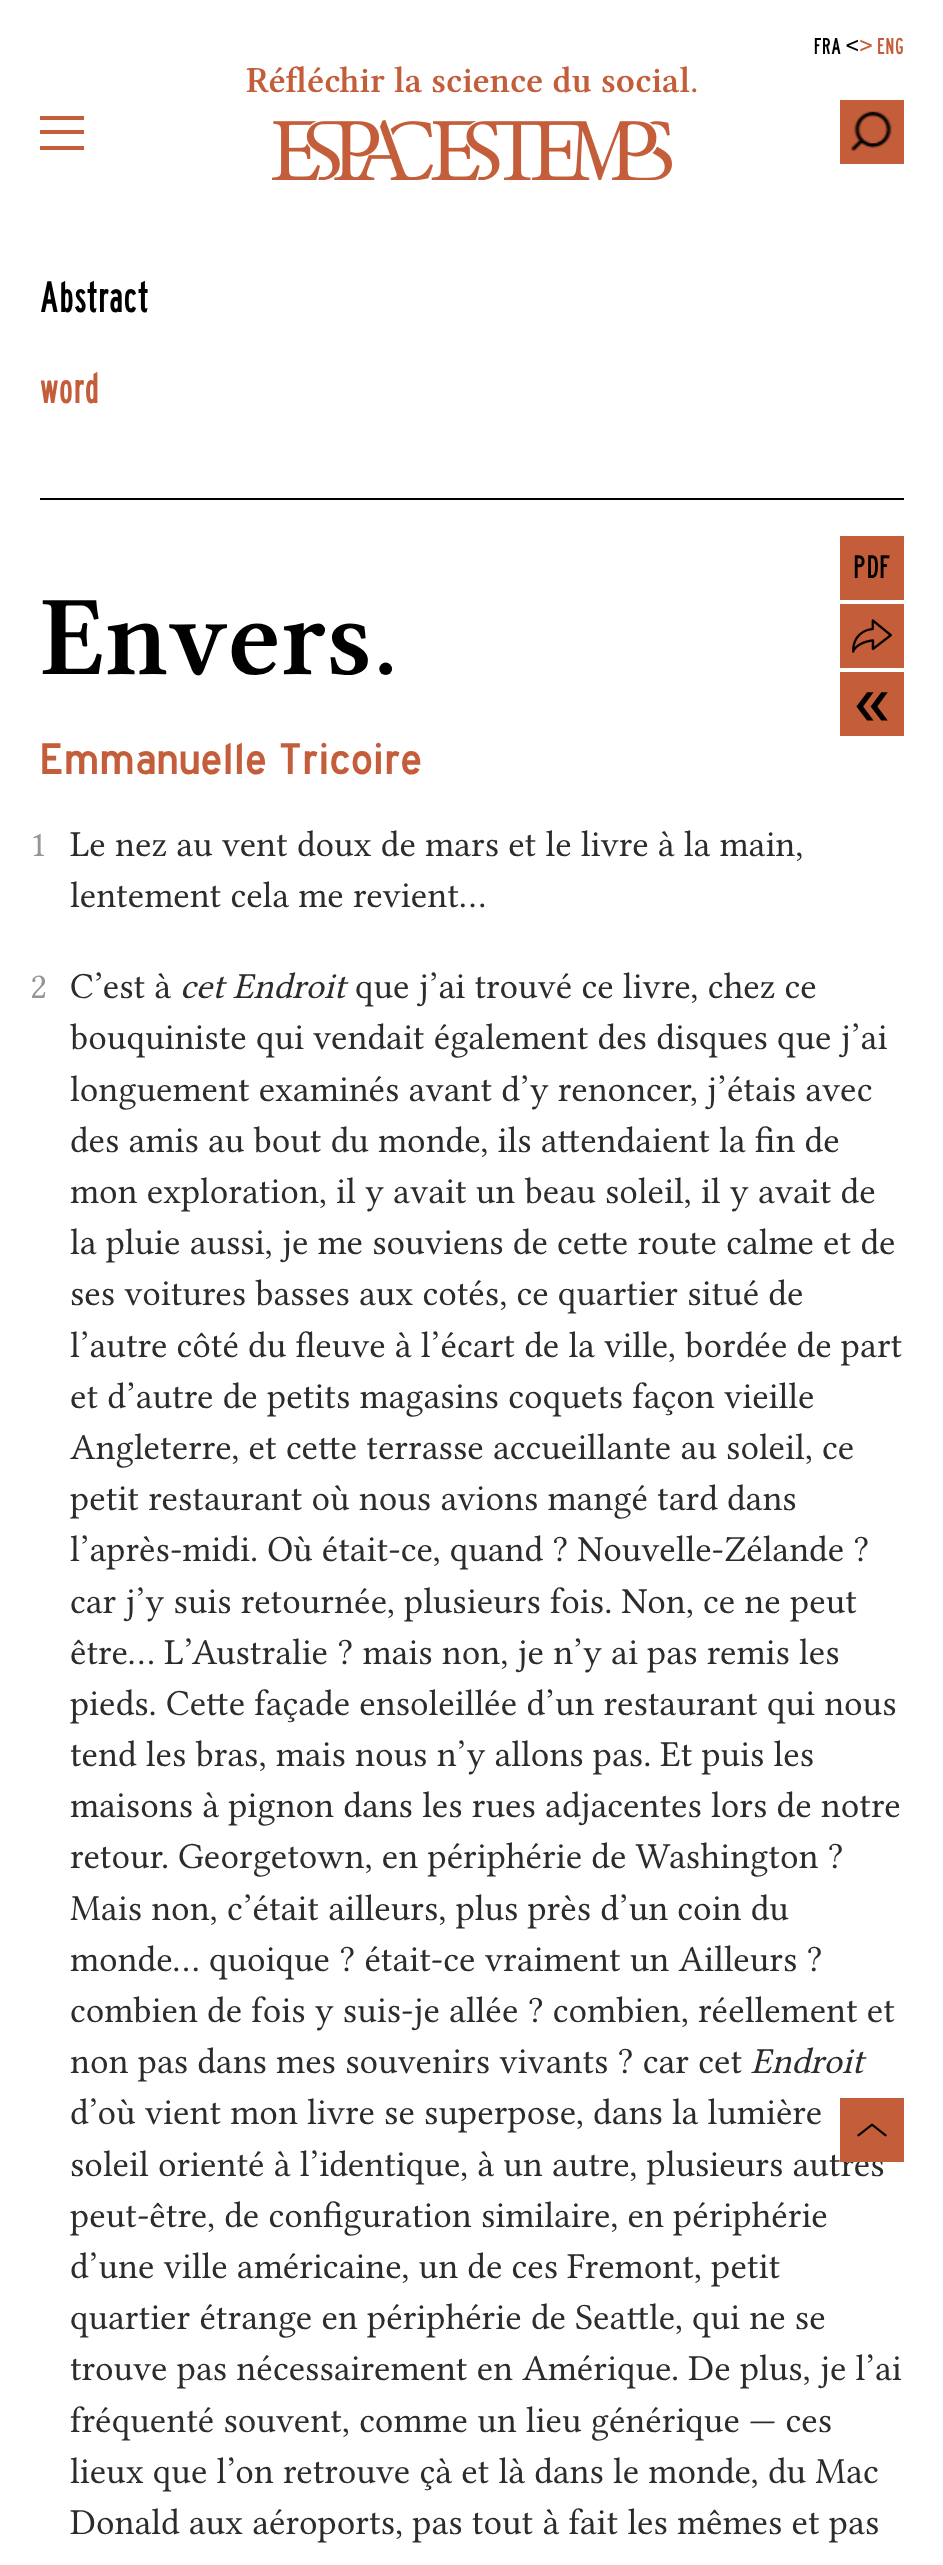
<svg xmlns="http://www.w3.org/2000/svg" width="943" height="2565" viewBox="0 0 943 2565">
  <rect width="100%" height="100%" fill="#fff"/>
  <path d="M840 100h64v64H840z" fill="#c45d3a"/>
  <image x="851" y="111" width="41" height="40" href="img/1.png"/>
  <image x="272" y="120" width="400" height="60" href="img/2.png"/>
  <path d="M40 130h44v4H40z" fill="#c45d3a"/>
  <path d="M40 146h44v4H40z" fill="#c45d3a"/>
  <path d="M40 116h44v4H40z" fill="#c45d3a"/>
  <path d="M40 498h864v2H40z" fill="#000"/>
  <path d="M840 536h64v64H840z" fill="#c45d3a"/>
  <path d="M840 604h64v64H840z" fill="#c45d3a"/>
  <image x="852" y="619" width="40" height="34" href="img/3.png"/>
  <path d="M840 672h64v64H840z" fill="#c45d3a"/>
  <text x="814" y="54" font-family="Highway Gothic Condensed" font-size="24" fill="#000">FRA &lt;</text>
  <text x="859" y="54" font-family="Highway Gothic Condensed" font-size="24" fill="#c45d3a">&gt; ENG</text>
  <text x="246" y="92" font-family="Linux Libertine" font-size="36.8" font-weight="600" fill="#c45d3a">Réfléchir la science du social.</text>
  <text x="40" y="312" font-family="Highway Gothic Condensed" font-size="46" fill="#000">Abstract</text>
  <text x="40" y="403" font-family="Highway Gothic Condensed" font-size="46" fill="#c45d3a">word</text>
  <text x="40" y="674" font-family="Linux Libertine" font-size="114" font-weight="600" fill="#000">Envers.</text>
  <text x="853" y="578" font-family="Highway Gothic Condensed" font-size="34" fill="#000">PDF</text>
  <text x="853" y="726" font-family="Montserrat" font-size="74" font-weight="500" fill="#000">«</text>
  <text x="40" y="774" font-family="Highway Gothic" font-size="46" fill="#c45d3a">Emmanuelle Tricoire</text>
  <text x="30" y="856" font-family="Linux Libertine" font-size="36.8" fill="#959595">1</text>
  <g font-family="Linux Libertine" font-size="36.8" fill="#2c2c2c">
    <text x="70" y="856">Le nez au vent doux de mars et le livre à la main,</text>
    <text x="70" y="907">lentement cela me revient…</text>
  </g>
  <text x="30" y="998" font-family="Linux Libertine" font-size="36.8" fill="#959595">2</text>
  <text x="70" y="998" font-family="Linux Libertine" font-size="36.8" fill="#2c2c2c">C’est à</text>
  <text x="180" y="998" font-family="Linux Libertine" font-size="36.8" font-style="italic" fill="#2c2c2c">cet Endroit</text>
  <g font-family="Linux Libertine" font-size="36.8" fill="#2c2c2c">
    <text x="355" y="998">que j’ai trouvé ce livre, chez ce</text>
    <text x="70" y="1049">bouquiniste qui vendait également des disques que j’ai</text>
    <text x="70" y="1101">longuement examinés avant d’y renoncer, j’étais avec</text>
    <text x="70" y="1152">des amis au bout du monde, ils attendaient la fin de</text>
    <text x="70" y="1203">mon exploration, il y avait un beau soleil, il y avait de</text>
    <text x="70" y="1254">la pluie aussi, je me souviens de cette route calme et de</text>
    <text x="70" y="1305">ses voitures basses aux cotés, ce quartier situé de</text>
    <text x="70" y="1357">l’autre côté du fleuve à l’écart de la ville, bordée de part</text>
    <text x="70" y="1408">et d’autre de petits magasins coquets façon vieille</text>
    <text x="70" y="1459">Angleterre, et cette terrasse accueillante au soleil, ce</text>
    <text x="70" y="1510">petit restaurant où nous avions mangé tard dans</text>
    <text x="70" y="1561">l’après-midi. Où était-ce, quand ? Nouvelle-Zélande ?</text>
    <text x="70" y="1613">car j’y suis retournée, plusieurs fois. Non, ce ne peut</text>
    <text x="70" y="1664">être… L’Australie ? mais non, je n’y ai pas remis les</text>
    <text x="70" y="1715">pieds. Cette façade ensoleillée d’un restaurant qui nous</text>
    <text x="70" y="1766">tend les bras, mais nous n’y allons pas. Et puis les</text>
    <text x="70" y="1817">maisons à pignon dans les rues adjacentes lors de notre</text>
    <text x="70" y="1868">retour. Georgetown, en périphérie de Washington ?</text>
    <text x="70" y="1920">Mais non, c’était ailleurs, plus près d’un coin du</text>
    <text x="70" y="1971">monde… quoique ? était-ce vraiment un Ailleurs ?</text>
    <text x="70" y="2022">combien de fois y suis-je allée ? combien, réellement et</text>
    <text x="70" y="2073">non pas dans mes souvenirs vivants ? car cet</text>
  </g>
  <text x="751" y="2073" font-family="Linux Libertine" font-size="36.8" font-style="italic" fill="#2c2c2c">Endroit</text>
  <g font-family="Linux Libertine" font-size="36.8" fill="#2c2c2c">
    <text x="70" y="2124">d’où vient mon livre se superpose, dans la lumière</text>
    <text x="70" y="2176">soleil orienté à l’identique, à un autre, plusieurs autres</text>
    <text x="70" y="2227">peut-être, de configuration similaire, en périphérie</text>
    <text x="70" y="2278">d’une ville américaine, un de ces Fremont, petit</text>
    <text x="70" y="2329">quartier étrange en périphérie de Seattle, qui ne se</text>
    <text x="70" y="2380">trouve pas nécessairement en Amérique. De plus, je l’ai</text>
    <text x="70" y="2432">fréquenté souvent, comme un lieu générique — ces</text>
    <text x="70" y="2483">lieux que l’on retrouve çà et là dans le monde, du Mac</text>
    <text x="70" y="2534">Donald aux aéroports, pas tout à fait les mêmes et pas</text>
  </g>
  <path d="M840 2098h64v64H840z" fill="#c45d3a"/>
  <image x="857" y="2123" width="30" height="14" href="img/4.png"/>
</svg>
